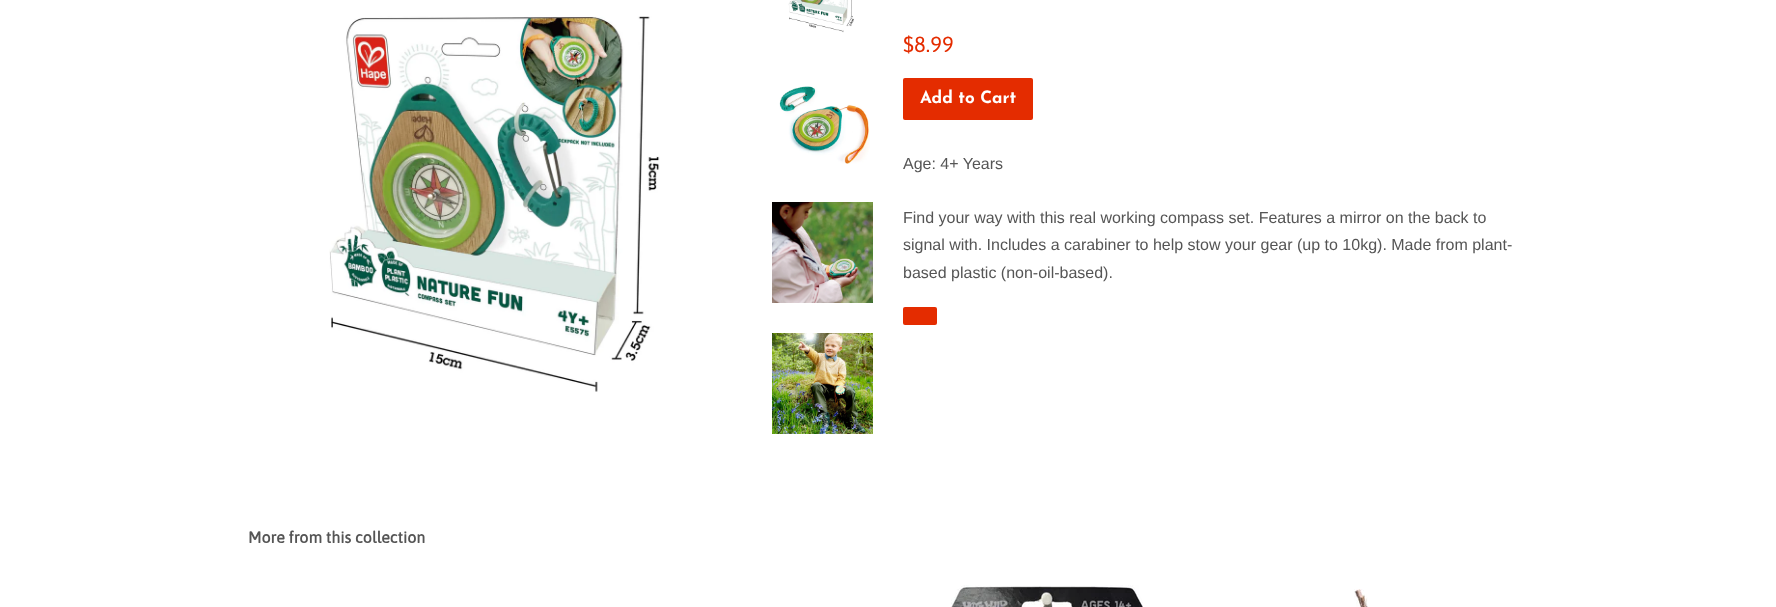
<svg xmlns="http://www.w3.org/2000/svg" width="1776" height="607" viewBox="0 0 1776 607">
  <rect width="100%" height="100%" fill="#fff"/>
  <image x="329" y="16" width="331" height="376" href="img/1.png"/>
  <image x="788" y="0" width="66" height="33" href="img/2.png"/>
  <image x="779" y="86" width="91" height="78" href="img/3.png"/>
  <image x="772" y="202" width="101" height="101" href="img/4.png"/>
  <image x="772" y="333" width="101" height="101" href="img/5.png"/>
  <rect x="903" y="78" width="130" height="42" rx="2" fill="#e42c00"/>
  <rect x="903" y="307" width="34" height="18" rx="2" fill="#e42c00"/>
  <image x="951" y="585" width="192" height="22" href="img/6.png"/>
  <image x="1354" y="589" width="14" height="18" href="img/7.png"/>
  <text x="903" y="52" font-family="Asap" font-size="22" fill="#e42c00">$8.99</text>
  <text x="920" y="103" font-family="Josefin Sans" font-size="17" font-weight="100" fill="#fff">Add to Cart</text>
  <g font-family="Liberation Sans" font-size="16" fill="#555">
    <text x="903" y="169">Age: 4+ Years</text>
    <text x="903" y="223">Find your way with this real working compass set. Features a mirror on the back to</text>
    <text x="903" y="250">signal with. Includes a carabiner to help stow your gear (up to 10kg). Made from plant-</text>
    <text x="903" y="278">based plastic (non-oil-based).</text>
  </g>
  <text x="248" y="543" font-family="Asap" font-size="16" font-weight="bold" fill="#555">More from this collection</text>
</svg>
